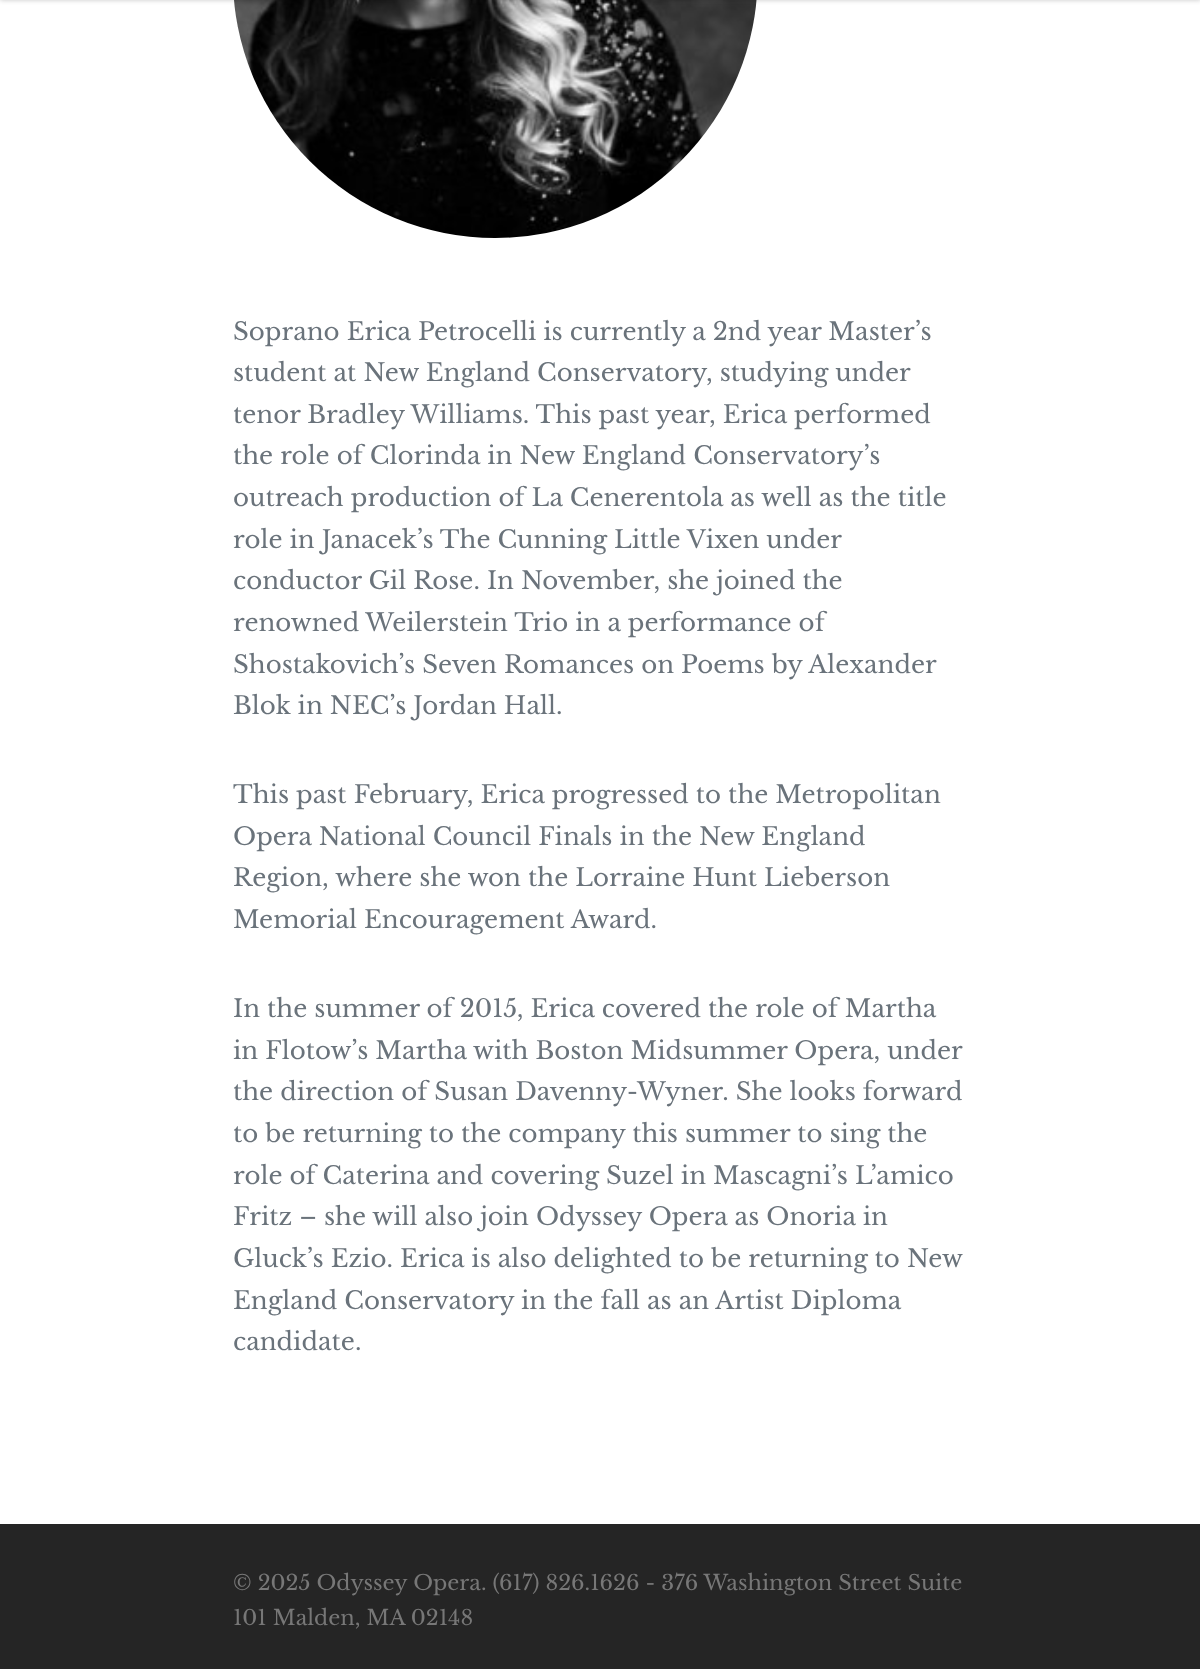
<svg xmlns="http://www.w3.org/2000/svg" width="1200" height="1669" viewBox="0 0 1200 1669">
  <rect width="100%" height="100%" fill="#252525"/>
  <path d="M0 0h1200v1524H0z" fill="#fff"/>
  <image x="234" y="0" width="523" height="238" href="img/1.png"/>
  <path d="M0 -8h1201v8H0z" fill="#00000038" filter="blur(2.5px)"/>
  <g font-family="Libre Baskerville" font-size="24.5" fill="#6a737b">
    <text x="233" y="340">Soprano Erica Petrocelli is currently a 2nd year Master’s</text>
    <text x="233" y="381">student at New England Conservatory, studying under</text>
    <text x="233" y="423">tenor Bradley Williams. This past year, Erica performed</text>
    <text x="233" y="464">the role of Clorinda in New England Conservatory’s</text>
    <text x="233" y="506">outreach production of La Cenerentola as well as the title</text>
    <text x="233" y="548">role in Janacek’s The Cunning Little Vixen under</text>
    <text x="233" y="589">conductor Gil Rose. In November, she joined the</text>
    <text x="233" y="631">renowned Weilerstein Trio in a performance of</text>
    <text x="233" y="673">Shostakovich’s Seven Romances on Poems by Alexander</text>
    <text x="233" y="714">Blok in NEC’s Jordan Hall.</text>
    <text x="233" y="803">This past February, Erica progressed to the Metropolitan</text>
    <text x="233" y="845">Opera National Council Finals in the New England</text>
    <text x="233" y="886">Region, where she won the Lorraine Hunt Lieberson</text>
    <text x="233" y="928">Memorial Encouragement Award.</text>
    <text x="233" y="1017">In the summer of 2015, Erica covered the role of Martha</text>
    <text x="233" y="1059">in Flotow’s Martha with Boston Midsummer Opera, under</text>
    <text x="233" y="1100">the direction of Susan Davenny-Wyner. She looks forward</text>
    <text x="233" y="1142">to be returning to the company this summer to sing the</text>
    <text x="233" y="1184">role of Caterina and covering Suzel in Mascagni’s L’amico</text>
    <text x="233" y="1225">Fritz – she will also join Odyssey Opera as Onoria in</text>
    <text x="233" y="1267">Gluck’s Ezio. Erica is also delighted to be returning to New</text>
    <text x="233" y="1309">England Conservatory in the fall as an Artist Diploma</text>
    <text x="233" y="1350">candidate.</text>
  </g>
  <g font-family="Libre Baskerville" font-size="21" fill="#777">
    <text x="233" y="1590">© 2025 Odyssey Opera. (617) 826.1626 - 376 Washington Street Suite</text>
    <text x="233" y="1625">101 Malden, MA 02148</text>
  </g>
</svg>
